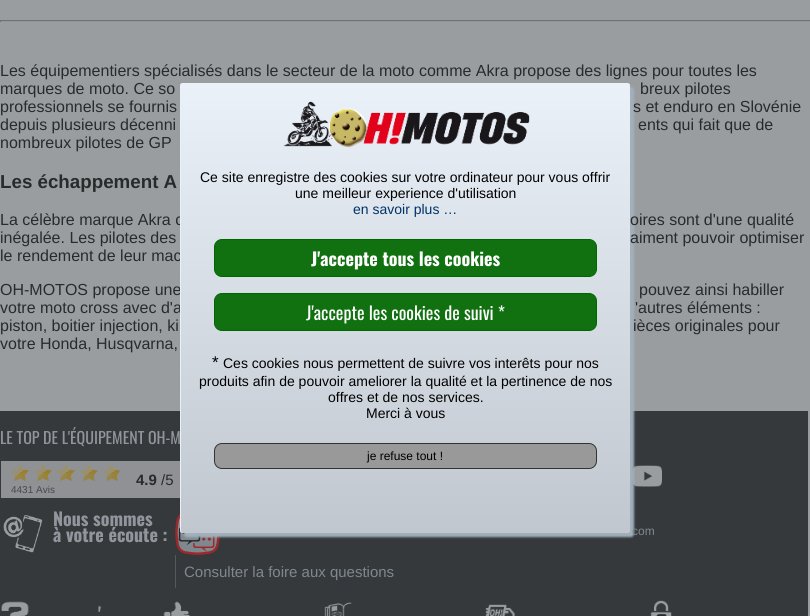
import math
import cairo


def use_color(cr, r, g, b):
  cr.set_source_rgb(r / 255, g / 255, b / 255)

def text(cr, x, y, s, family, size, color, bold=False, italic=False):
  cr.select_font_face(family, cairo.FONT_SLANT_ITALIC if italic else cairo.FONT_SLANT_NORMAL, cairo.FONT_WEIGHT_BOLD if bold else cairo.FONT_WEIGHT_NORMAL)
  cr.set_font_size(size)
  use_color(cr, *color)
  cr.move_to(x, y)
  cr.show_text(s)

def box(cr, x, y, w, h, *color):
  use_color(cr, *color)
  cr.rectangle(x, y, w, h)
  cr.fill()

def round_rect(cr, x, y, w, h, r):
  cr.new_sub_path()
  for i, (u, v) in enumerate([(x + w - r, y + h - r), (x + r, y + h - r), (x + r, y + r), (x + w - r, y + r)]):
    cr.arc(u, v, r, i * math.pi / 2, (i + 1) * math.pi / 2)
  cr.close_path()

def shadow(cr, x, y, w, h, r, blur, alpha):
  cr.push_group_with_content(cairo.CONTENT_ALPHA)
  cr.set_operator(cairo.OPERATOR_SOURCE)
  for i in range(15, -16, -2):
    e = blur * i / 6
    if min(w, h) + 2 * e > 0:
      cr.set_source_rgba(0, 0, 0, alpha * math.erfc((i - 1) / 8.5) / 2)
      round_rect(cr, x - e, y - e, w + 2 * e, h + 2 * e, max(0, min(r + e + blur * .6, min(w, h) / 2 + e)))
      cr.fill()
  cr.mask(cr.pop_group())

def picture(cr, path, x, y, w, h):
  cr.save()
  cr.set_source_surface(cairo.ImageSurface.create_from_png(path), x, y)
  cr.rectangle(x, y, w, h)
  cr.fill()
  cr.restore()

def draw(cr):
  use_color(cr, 154, 157, 159)
  cr.paint()
  box(cr, 0, 20, 810, 1, 111, 113, 116)
  box(cr, 0, 21, 810, 1, 147, 149, 151)
  box(cr, 0, 20, 1, 2, 111, 113, 116)
  box(cr, 0, 411, 808, 205, 53, 57, 60)
  picture(cr, "img_04.png", 632, 465, 30, 22)
  picture(cr, "img_06.png", 175, 514, 45, 41)
  use_color(cr, 162, 176, 188)
  shadow(cr, 184, 87, 450, 450, 3, 1, 1)
  box(cr, 1, 461, 179, 37, 143, 145, 148)
  picture(cr, "img_02.png", 12, 468, 109, 13)
  picture(cr, "img_03.png", 11, 464, 108, 17)
  picture(cr, "img_05.png", 3, 515, 40, 38)
  box(cr, 175, 555, 1, 33, 86, 88, 90)
  picture(cr, "img_07.png", 1, 601, 28, 15)
  picture(cr, "img_08.png", 163, 601, 27, 15)
  picture(cr, "img_09.png", 324, 602, 28, 14)
  picture(cr, "img_10.png", 485, 604, 30, 12)
  picture(cr, "img_11.png", 650, 600, 22, 16)
  text(cr, 0, 76, "Les équipementiers spécialisés dans le secteur de la moto comme Akra propose des lignes pour toutes les", "Liberation Sans", 16, (40, 42, 44))
  text(cr, 0, 94, "marques de moto. Ce so", "Liberation Sans", 16, (40, 42, 44))
  text(cr, 640, 94, "breux pilotes", "Liberation Sans", 16, (40, 42, 44))
  text(cr, 0, 112, "professionnels se fournis", "Liberation Sans", 16, (40, 42, 44))
  text(cr, 633, 112, "s et enduro en Slovénie", "Liberation Sans", 16, (40, 42, 44))
  text(cr, 0, 130, "depuis plusieurs décenni", "Liberation Sans", 16, (40, 42, 44))
  text(cr, 638, 130, "ents qui fait que de", "Liberation Sans", 16, (40, 42, 44))
  text(cr, 0, 148, "nombreux pilotes de GP", "Liberation Sans", 16, (40, 42, 44))
  text(cr, 0, 188, "Les échappement A", "Liberation Sans", 18.75, (40, 42, 44), bold=True)
  text(cr, 0, 225, "La célèbre marque Akra c", "Liberation Sans", 16, (40, 42, 44))
  text(cr, 630, 225, "oires sont d'une qualité", "Liberation Sans", 16, (40, 42, 44))
  text(cr, 0, 243, "inégalée. Les pilotes des", "Liberation Sans", 16, (40, 42, 44))
  text(cr, 630, 243, "aiment pouvoir optimiser", "Liberation Sans", 16, (40, 42, 44))
  text(cr, 0, 261, "le rendement de leur mac", "Liberation Sans", 16, (40, 42, 44))
  text(cr, 0, 295, "OH-MOTOS propose une", "Liberation Sans", 16, (40, 42, 44))
  text(cr, 639, 295, "pouvez ainsi habiller", "Liberation Sans", 16, (40, 42, 44))
  text(cr, 0, 313, "votre moto cross avec d'a", "Liberation Sans", 16, (40, 42, 44))
  text(cr, 635, 313, "'autres éléments :", "Liberation Sans", 16, (40, 42, 44))
  text(cr, 0, 331, "piston, boitier injection, ki", "Liberation Sans", 16, (40, 42, 44))
  text(cr, 633, 331, "ièces originales pour", "Liberation Sans", 16, (40, 42, 44))
  text(cr, 0, 349, "votre Honda, Husqvarna,", "Liberation Sans", 16, (40, 42, 44))
  use_color(cr, 195, 208, 220)
  round_rect(cr, 180, 83, 450, 450, 3)
  cr.fill()
  cr.save()
  round_rect(cr, 180, 83, 450, 450, 3)
  cr.clip()
  gradient = cairo.LinearGradient(406, 84, 406, 533)
  gradient.add_color_stop_rgba(0, 0.918, 0.945, 0.976, 1)
  gradient.add_color_stop_rgba(1, 0.757, 0.78, 0.808, 1)
  cr.set_source(gradient)
  cr.new_path()
  cr.move_to(181, 84)
  cr.line_to(630, 84)
  cr.line_to(630, 530)
  cr.curve_to(630, 531.5, 628.5, 533, 627, 533)
  cr.line_to(181, 533)
  cr.close_path()
  cr.fill()
  cr.restore()
  use_color(cr, 234, 241, 249)
  cr.set_fill_rule(cairo.FILL_RULE_EVEN_ODD)
  cr.new_path()
  cr.move_to(183, 83)
  cr.line_to(627, 83)
  cr.curve_to(629, 83, 630, 84, 630, 86)
  cr.line_to(630, 530)
  cr.curve_to(630, 532, 629, 533, 627, 533)
  cr.line_to(183, 533)
  cr.curve_to(181, 533, 180, 532, 180, 530)
  cr.line_to(180, 86)
  cr.curve_to(180, 84, 181, 83, 183, 83)
  cr.close_path()
  cr.move_to(183, 84)
  cr.line_to(627, 84)
  cr.curve_to(629, 84, 630, 85, 630, 86)
  cr.line_to(630, 530)
  cr.curve_to(630, 532, 629, 533, 627, 533)
  cr.line_to(183, 533)
  cr.curve_to(182, 533, 181, 532, 181, 530)
  cr.line_to(181, 86)
  cr.curve_to(181, 85, 182, 84, 183, 84)
  cr.close_path()
  cr.fill()
  picture(cr, "img_01.png", 283, 101, 247, 47)
  text(cr, 200, 182, "Ce site enregistre des cookies sur votre ordinateur pour vous offrir", "Liberation Sans", 14, (0, 0, 0))
  text(cr, 295, 198, "une meilleur experience d'utilisation", "Liberation Sans", 14, (0, 0, 0))
  text(cr, 353, 214, "en savoir plus …", "Liberation Sans", 14, (0, 51, 102))
  use_color(cr, 17, 113, 17)
  round_rect(cr, 214.5, 239.5, 382, 37, 7.5)
  cr.fill_preserve()
  use_color(cr, 0, 102, 0)
  cr.set_line_width(1)
  cr.stroke()
  text(cr, 311, 266, "J'accepte tous les cookies", "Oswald", 18, (255, 255, 255), bold=True)
  use_color(cr, 17, 113, 17)
  round_rect(cr, 214.5, 293.5, 382, 37, 7.5)
  cr.fill_preserve()
  use_color(cr, 0, 102, 0)
  cr.stroke()
  text(cr, 306, 320, "J'accepte les cookies de suivi *", "Oswald", 18, (255, 255, 255))
  text(cr, 212, 368, "*", "Liberation Sans", 17, (0, 0, 0))
  text(cr, 223, 368, "Ces cookies nous permettent de suivre vos interêts pour nos", "Liberation Sans", 14, (0, 0, 0))
  text(cr, 199, 386, "produits afin de pouvoir ameliorer la qualité et la pertinence de nos", "Liberation Sans", 14, (0, 0, 0))
  text(cr, 328, 402, "offres et de nos services.", "Liberation Sans", 14, (0, 0, 0))
  text(cr, 366, 418, "Merci à vous", "Liberation Sans", 14, (0, 0, 0))
  use_color(cr, 153, 153, 153)
  round_rect(cr, 214.5, 443.5, 382, 25, 7.5)
  cr.fill_preserve()
  use_color(cr, 51, 51, 51)
  cr.stroke()
  text(cr, 367, 460, "je refuse tout !", "Liberation Sans", 12, (0, 0, 0))
  text(cr, 0, 444, "LE TOP DE L'ÉQUIPEMENT OH-M", "Oswald", 16, (145, 150, 156))
  text(cr, 136, 485, "4.9", "Liberation Sans", 15, (40, 42, 44), bold=True)
  text(cr, 161, 485, "/5", "Liberation Sans", 15, (40, 42, 44))
  text(cr, 11, 493, "4431 Avis", "Liberation Sans", 10, (68, 73, 78))
  text(cr, 53, 526, "Nous sommes", "Oswald", 18, (145, 150, 156), bold=True)
  text(cr, 53, 542, "à votre écoute :", "Oswald", 18, (145, 150, 156), bold=True)
  text(cr, 632, 535, "com", "Liberation Sans", 12, (127, 135, 143))
  text(cr, 184, 577, "Consulter la foire aux questions", "Liberation Sans", 15, (127, 135, 143))
  text(cr, 98, 621, "'", "Oswald", 18, (145, 150, 156), bold=True)


surface = cairo.ImageSurface(cairo.FORMAT_RGB24, 810, 616)
cr = cairo.Context(surface)
options = cairo.FontOptions()
options.set_hint_metrics(cairo.HINT_METRICS_OFF)
options.set_hint_style(cairo.HINT_STYLE_NONE)
cr.set_font_options(options)
cr.set_miter_limit(4)
draw(cr)
surface.write_to_png("out.png")
